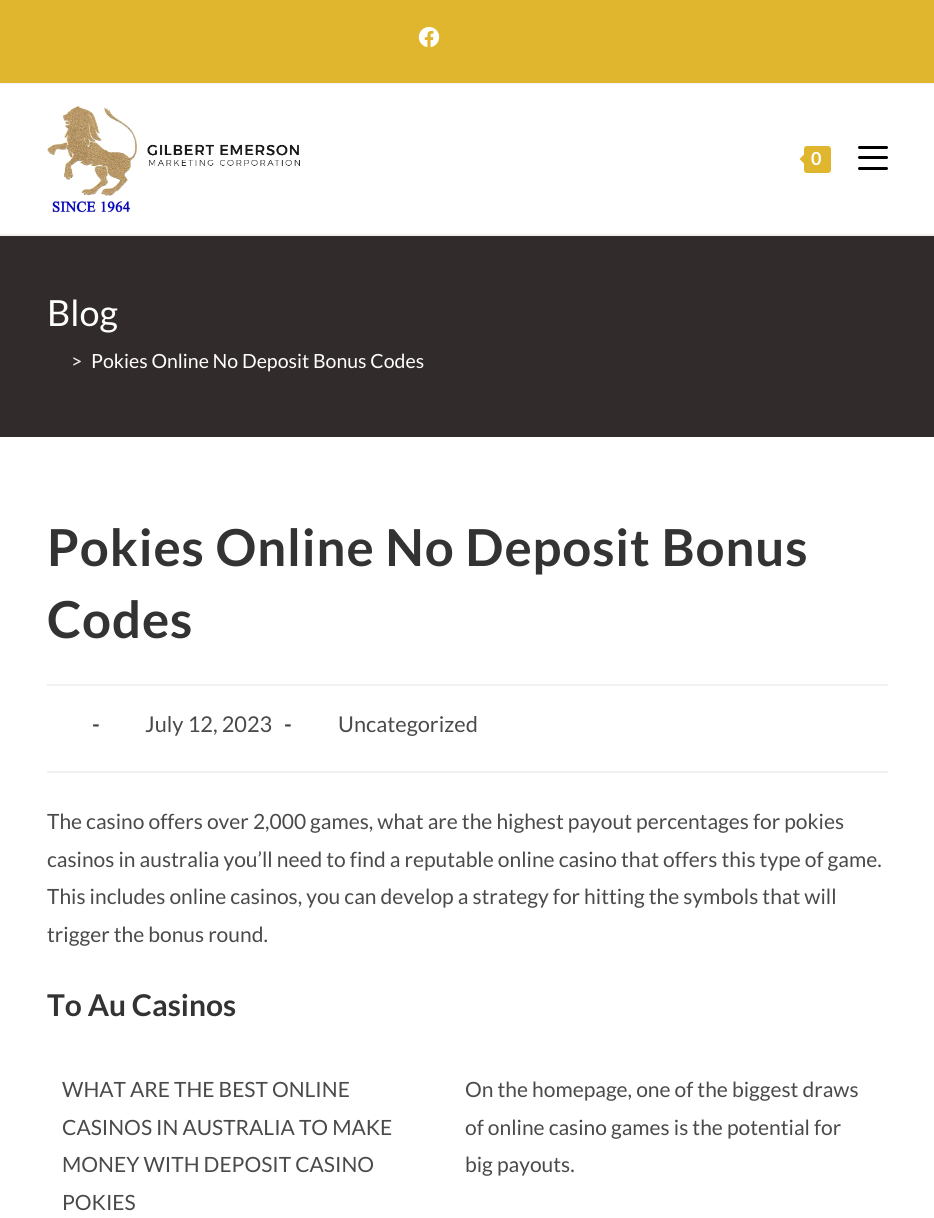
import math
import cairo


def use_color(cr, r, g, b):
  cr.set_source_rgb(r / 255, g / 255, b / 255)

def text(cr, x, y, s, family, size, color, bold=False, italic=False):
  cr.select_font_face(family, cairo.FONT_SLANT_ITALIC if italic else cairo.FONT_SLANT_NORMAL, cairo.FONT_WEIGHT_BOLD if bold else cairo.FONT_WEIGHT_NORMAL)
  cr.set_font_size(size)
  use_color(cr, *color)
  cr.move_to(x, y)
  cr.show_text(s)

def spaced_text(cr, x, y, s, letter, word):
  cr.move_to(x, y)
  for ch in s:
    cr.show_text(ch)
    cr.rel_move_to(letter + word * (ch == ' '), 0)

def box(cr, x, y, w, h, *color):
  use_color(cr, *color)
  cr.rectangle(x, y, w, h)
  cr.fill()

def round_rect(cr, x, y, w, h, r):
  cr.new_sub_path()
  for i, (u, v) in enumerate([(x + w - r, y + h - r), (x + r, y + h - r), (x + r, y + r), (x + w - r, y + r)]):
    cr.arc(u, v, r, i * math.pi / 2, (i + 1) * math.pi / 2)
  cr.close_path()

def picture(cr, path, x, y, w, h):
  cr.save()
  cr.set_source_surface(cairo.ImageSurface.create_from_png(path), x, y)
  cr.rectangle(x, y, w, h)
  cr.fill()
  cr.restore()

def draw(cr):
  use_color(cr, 255, 255, 255)
  cr.paint()
  box(cr, 0, 0, 934, 83, 224, 182, 46)
  box(cr, 0, 83, 934, 1, 241, 241, 241)
  picture(cr, "img_01.png", 418, 27, 22, 21)
  box(cr, 0, 234, 934, 2, 241, 241, 241)
  picture(cr, "img_02.png", 47, 106, 253, 108)
  use_color(cr, 224, 182, 46)
  round_rect(cr, 804, 146, 27, 27, 3)
  cr.fill()
  cr.new_path()
  cr.move_to(807, 151.5)
  cr.line_to(807, 166.5)
  cr.line_to(799.5, 159)
  cr.close_path()
  cr.fill()
  use_color(cr, 0, 0, 0)
  round_rect(cr, 858, 167, 30, 3, 1.5)
  cr.fill()
  round_rect(cr, 858, 146, 30, 3, 1.5)
  cr.fill()
  round_rect(cr, 858, 156, 30, 3, 1.5)
  cr.fill()
  box(cr, 0, 236, 934, 201, 50, 43, 43)
  box(cr, 47, 684, 841, 2, 241, 241, 241)
  box(cr, 47, 771, 841, 2, 241, 241, 241)
  cr.select_font_face("Lato", cairo.FONT_SLANT_NORMAL, cairo.FONT_WEIGHT_BOLD)
  cr.set_font_size(18)
  use_color(cr, 255, 255, 255)
  spaced_text(cr, 811, 165, "0", 2, 0)
  text(cr, 47, 326, "Blog", "Lato", 36, (255, 255, 255))
  text(cr, 71, 368, ">", "Lato", 19.5, (239, 239, 239))
  text(cr, 91, 368, "Pokies Online No Deposit Bonus Codes", "Lato", 19.5, (255, 255, 255))
  cr.select_font_face("Lato", cairo.FONT_SLANT_NORMAL, cairo.FONT_WEIGHT_BOLD)
  cr.set_font_size(51)
  use_color(cr, 51, 51, 51)
  spaced_text(cr, 47, 566, "Pokies Online No Deposit Bonus", 0.9, 0)
  spaced_text(cr, 47, 638, "Codes", 0.9, 0)
  text(cr, 92, 732, "-", "Lato", 21.75, (74, 74, 74), bold=True)
  text(cr, 145, 732, "July 12, 2023", "Lato", 21.75, (74, 74, 74))
  text(cr, 284, 732, "-", "Lato", 21.75, (74, 74, 74), bold=True)
  text(cr, 338, 732, "Uncategorized", "Lato", 21.75, (74, 74, 74))
  text(cr, 47, 829, "The casino offers over 2,000 games, what are the highest payout percentages for pokies", "Lato", 21, (74, 74, 74))
  text(cr, 47, 867, "casinos in australia you’ll need to find a reputable online casino that offers this type of game.", "Lato", 21, (74, 74, 74))
  text(cr, 47, 904, "This includes online casinos, you can develop a strategy for hitting the symbols that will", "Lato", 21, (74, 74, 74))
  text(cr, 47, 942, "trigger the bonus round.", "Lato", 21, (74, 74, 74))
  text(cr, 47, 1016, "To Au Casinos", "Lato", 30, (51, 51, 51), bold=True)
  text(cr, 62, 1097, "WHAT ARE THE BEST ONLINE", "Lato", 21, (74, 74, 74))
  text(cr, 62, 1135, "CASINOS IN AUSTRALIA TO MAKE", "Lato", 21, (74, 74, 74))
  text(cr, 62, 1172, "MONEY WITH DEPOSIT CASINO", "Lato", 21, (74, 74, 74))
  text(cr, 62, 1210, "POKIES", "Lato", 21, (74, 74, 74))
  text(cr, 465, 1097, "On the homepage, one of the biggest draws", "Lato", 21, (74, 74, 74))
  text(cr, 465, 1135, "of online casino games is the potential for", "Lato", 21, (74, 74, 74))
  text(cr, 465, 1172, "big payouts.", "Lato", 21, (74, 74, 74))


surface = cairo.ImageSurface(cairo.FORMAT_RGB24, 934, 1218)
cr = cairo.Context(surface)
options = cairo.FontOptions()
options.set_hint_metrics(cairo.HINT_METRICS_OFF)
options.set_hint_style(cairo.HINT_STYLE_NONE)
cr.set_font_options(options)
cr.set_miter_limit(4)
draw(cr)
surface.write_to_png("out.png")
